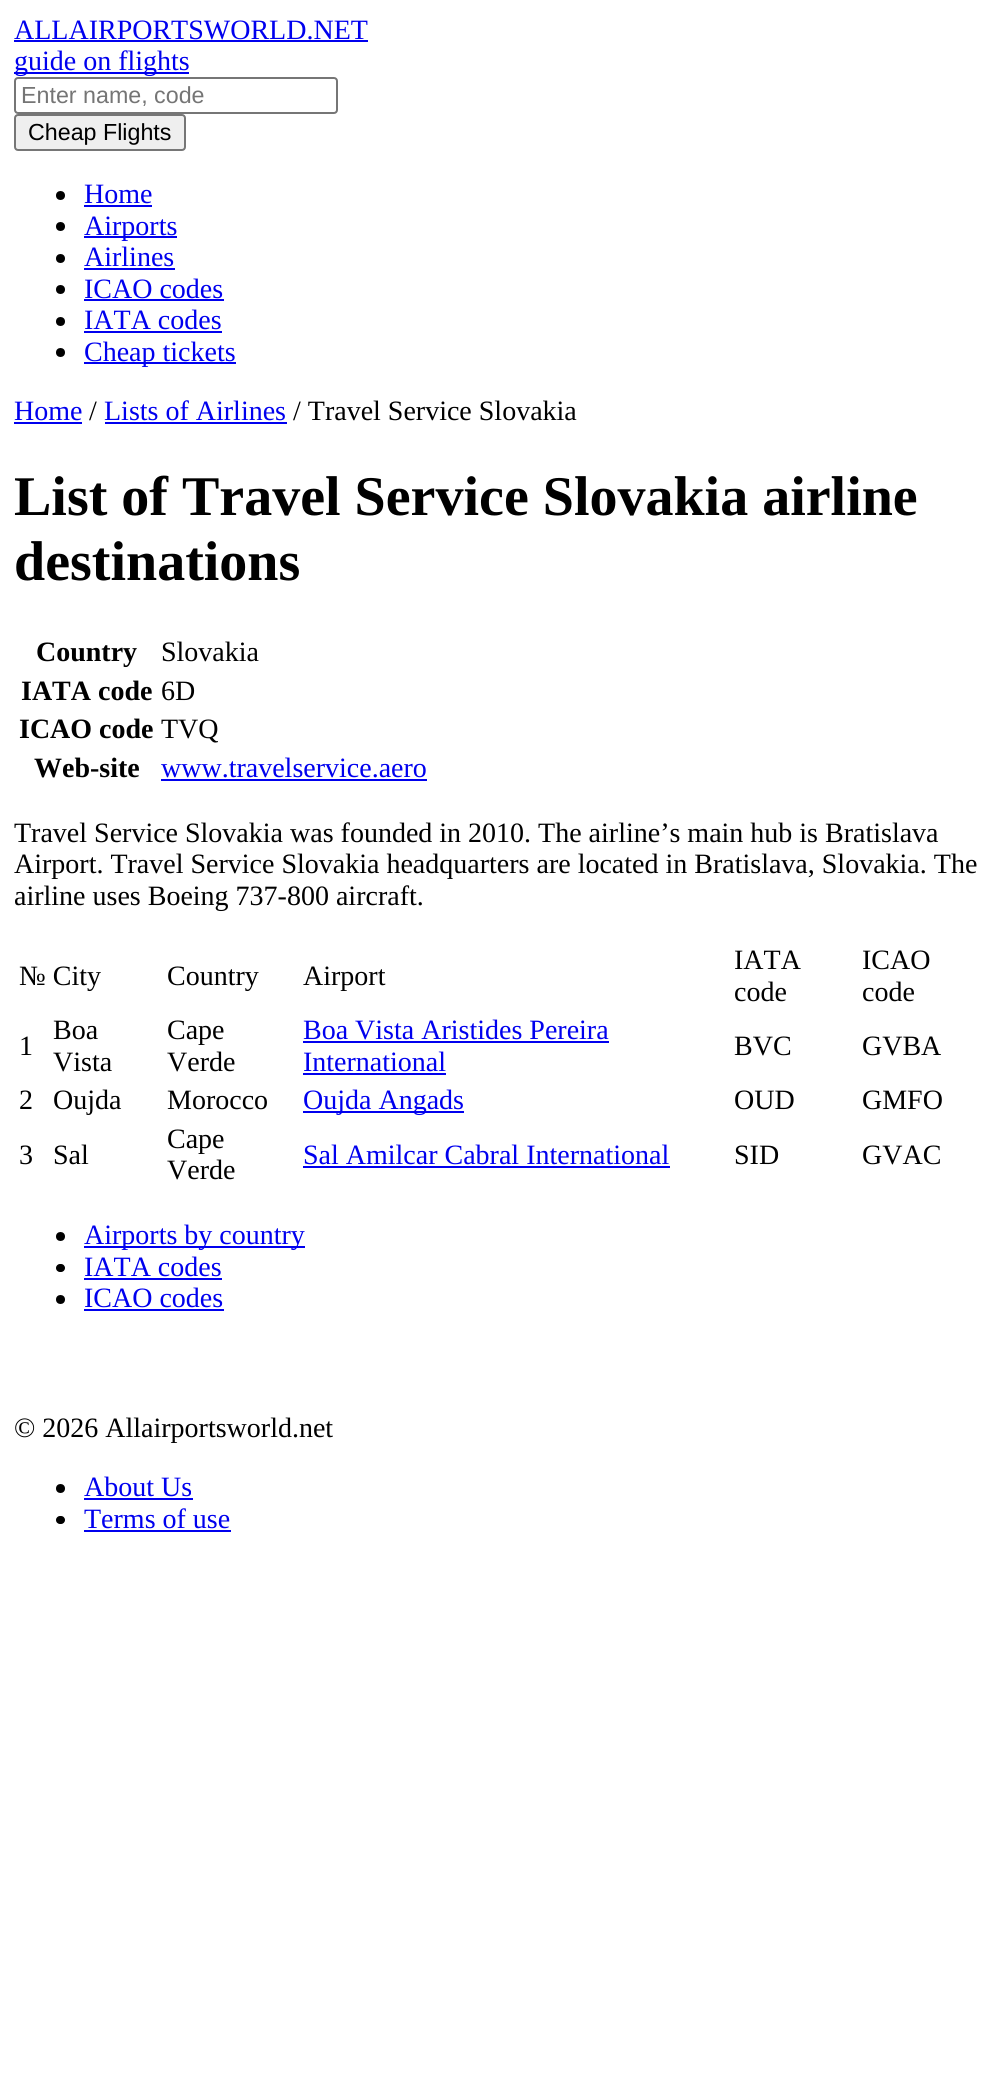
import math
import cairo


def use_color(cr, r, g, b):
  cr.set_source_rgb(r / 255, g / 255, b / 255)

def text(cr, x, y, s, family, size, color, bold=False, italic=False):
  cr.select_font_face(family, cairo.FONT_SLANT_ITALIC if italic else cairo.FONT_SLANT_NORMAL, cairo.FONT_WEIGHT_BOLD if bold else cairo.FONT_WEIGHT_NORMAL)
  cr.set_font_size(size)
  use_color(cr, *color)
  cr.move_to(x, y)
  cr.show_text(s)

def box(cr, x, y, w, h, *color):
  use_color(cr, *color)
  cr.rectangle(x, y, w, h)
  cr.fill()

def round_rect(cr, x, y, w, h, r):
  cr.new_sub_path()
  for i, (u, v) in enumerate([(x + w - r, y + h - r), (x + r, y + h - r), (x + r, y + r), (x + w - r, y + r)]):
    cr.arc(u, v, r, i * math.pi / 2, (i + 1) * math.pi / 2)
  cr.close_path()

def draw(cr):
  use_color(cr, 255, 255, 255)
  cr.paint()
  box(cr, 14, 40, 354, 2, 0, 0, 238)
  box(cr, 14, 72, 175, 2, 0, 0, 238)
  round_rect(cr, 15, 78, 322, 35, 3)
  use_color(cr, 118, 118, 118)
  cr.stroke()
  use_color(cr, 239, 239, 239)
  round_rect(cr, 15, 115, 170, 35, 3)
  cr.fill_preserve()
  use_color(cr, 118, 118, 118)
  cr.stroke()
  use_color(cr, 0, 0, 0)
  cr.arc(60.5, 195.5, 4.5, 0, 2 * math.pi)
  cr.fill()
  box(cr, 84, 205, 68, 2, 0, 0, 238)
  use_color(cr, 0, 0, 0)
  cr.arc(60.5, 226.5, 4.5, 0, 2 * math.pi)
  cr.fill()
  box(cr, 84, 236, 93, 2, 0, 0, 238)
  use_color(cr, 0, 0, 0)
  cr.arc(60.5, 258.5, 4.5, 0, 2 * math.pi)
  cr.fill()
  box(cr, 84, 268, 91, 2, 0, 0, 238)
  use_color(cr, 0, 0, 0)
  cr.arc(60.5, 289.5, 4.5, 0, 2 * math.pi)
  cr.fill()
  box(cr, 84, 299, 140, 2, 0, 0, 238)
  use_color(cr, 0, 0, 0)
  cr.arc(60.5, 321.5, 4.5, 0, 2 * math.pi)
  cr.fill()
  box(cr, 84, 331, 138, 2, 0, 0, 238)
  use_color(cr, 0, 0, 0)
  cr.arc(60.5, 352.5, 4.5, 0, 2 * math.pi)
  cr.fill()
  box(cr, 84, 362, 152, 2, 0, 0, 238)
  box(cr, 14, 422, 68, 2, 0, 0, 238)
  box(cr, 105, 422, 182, 2, 0, 0, 238)
  box(cr, 161, 779, 266, 2, 0, 0, 238)
  box(cr, 303, 1041, 306, 2, 0, 0, 238)
  box(cr, 303, 1073, 143, 2, 0, 0, 238)
  box(cr, 303, 1111, 161, 2, 0, 0, 238)
  box(cr, 303, 1166, 367, 2, 0, 0, 238)
  use_color(cr, 0, 0, 0)
  cr.arc(60.5, 1236.5, 4.5, 0, 2 * math.pi)
  cr.fill()
  box(cr, 84, 1246, 221, 2, 0, 0, 238)
  use_color(cr, 0, 0, 0)
  round_rect(cr, 56, 1264, 9, 8, 4)
  cr.fill()
  box(cr, 84, 1278, 138, 2, 0, 0, 238)
  use_color(cr, 0, 0, 0)
  cr.arc(60.5, 1299.5, 4.5, 0, 2 * math.pi)
  cr.fill()
  box(cr, 84, 1309, 140, 2, 0, 0, 238)
  use_color(cr, 0, 0, 0)
  cr.arc(60.5, 1488.5, 4.5, 0, 2 * math.pi)
  cr.fill()
  box(cr, 84, 1498, 109, 2, 0, 0, 238)
  use_color(cr, 0, 0, 0)
  round_rect(cr, 56, 1516, 9, 8, 4)
  cr.fill()
  box(cr, 84, 1530, 147, 2, 0, 0, 238)
  text(cr, 14, 39, "ALLAIRPORTSWORLD.NET", "Liberation Serif", 28, (0, 0, 238))
  text(cr, 14, 70, "guide on flights", "Liberation Serif", 28, (0, 0, 238))
  text(cr, 21, 103, "Enter name, code", "Liberation Sans", 23.25, (117, 117, 117))
  text(cr, 28, 140, "Cheap Flights", "Liberation Sans", 23.25, (0, 0, 0))
  text(cr, 84, 203, "Home", "Liberation Serif", 28, (0, 0, 238))
  text(cr, 84, 235, "Airports", "Liberation Serif", 28, (0, 0, 238))
  text(cr, 84, 266, "Airlines", "Liberation Serif", 28, (0, 0, 238))
  text(cr, 84, 298, "ICAO codes", "Liberation Serif", 28, (0, 0, 238))
  text(cr, 84, 329, "IATA codes", "Liberation Serif", 28, (0, 0, 238))
  text(cr, 84, 361, "Cheap tickets", "Liberation Serif", 28, (0, 0, 238))
  text(cr, 14, 420, "Home", "Liberation Serif", 28, (0, 0, 238))
  text(cr, 89, 420, "/", "Liberation Serif", 28, (0, 0, 0))
  text(cr, 104, 420, "Lists of Airlines", "Liberation Serif", 28, (0, 0, 238))
  text(cr, 293, 420, "/ Travel Service Slovakia", "Liberation Serif", 28, (0, 0, 0))
  text(cr, 14, 515, "List of Travel Service Slovakia airline", "Liberation Serif", 56, (0, 0, 0), bold=True)
  text(cr, 14, 580, "destinations", "Liberation Serif", 56, (0, 0, 0), bold=True)
  text(cr, 36, 661, "Country", "Liberation Serif", 28, (0, 0, 0), bold=True)
  text(cr, 161, 661, "Slovakia", "Liberation Serif", 28, (0, 0, 0))
  text(cr, 21, 700, "IATA code", "Liberation Serif", 28, (0, 0, 0), bold=True)
  text(cr, 161, 700, "6D", "Liberation Serif", 28, (0, 0, 0))
  text(cr, 19, 738, "ICAO code", "Liberation Serif", 28, (0, 0, 0), bold=True)
  text(cr, 161, 738, "TVQ", "Liberation Serif", 28, (0, 0, 0))
  text(cr, 34, 777, "Web-site", "Liberation Serif", 28, (0, 0, 0), bold=True)
  text(cr, 161, 777, "www.travelservice.aero", "Liberation Serif", 28, (0, 0, 238))
  text(cr, 14, 842, "Travel Service Slovakia was founded in 2010. The airline’s main hub is Bratislava", "Liberation Serif", 28, (0, 0, 0))
  text(cr, 14, 873, "Airport. Travel Service Slovakia headquarters are located in Bratislava, Slovakia. The", "Liberation Serif", 28, (0, 0, 0))
  text(cr, 14, 905, "airline uses Boeing 737-800 aircraft.", "Liberation Serif", 28, (0, 0, 0))
  text(cr, 19, 985, "№ City", "Liberation Serif", 28, (0, 0, 0))
  text(cr, 167, 985, "Country", "Liberation Serif", 28, (0, 0, 0))
  text(cr, 303, 985, "Airport", "Liberation Serif", 28, (0, 0, 0))
  text(cr, 734, 969, "IATA", "Liberation Serif", 28, (0, 0, 0))
  text(cr, 734, 1001, "code", "Liberation Serif", 28, (0, 0, 0))
  text(cr, 862, 969, "ICAO", "Liberation Serif", 28, (0, 0, 0))
  text(cr, 862, 1001, "code", "Liberation Serif", 28, (0, 0, 0))
  text(cr, 19, 1055, "1", "Liberation Serif", 28, (0, 0, 0))
  text(cr, 53, 1039, "Boa", "Liberation Serif", 28, (0, 0, 0))
  text(cr, 53, 1071, "Vista", "Liberation Serif", 28, (0, 0, 0))
  text(cr, 167, 1039, "Cape", "Liberation Serif", 28, (0, 0, 0))
  text(cr, 167, 1071, "Verde", "Liberation Serif", 28, (0, 0, 0))
  text(cr, 303, 1039, "Boa Vista Aristides Pereira", "Liberation Serif", 28, (0, 0, 238))
  text(cr, 303, 1071, "International", "Liberation Serif", 28, (0, 0, 238))
  text(cr, 734, 1055, "BVC", "Liberation Serif", 28, (0, 0, 0))
  text(cr, 862, 1055, "GVBA", "Liberation Serif", 28, (0, 0, 0))
  text(cr, 19, 1109, "2", "Liberation Serif", 28, (0, 0, 0))
  text(cr, 53, 1109, "Oujda", "Liberation Serif", 28, (0, 0, 0))
  text(cr, 167, 1109, "Morocco", "Liberation Serif", 28, (0, 0, 0))
  text(cr, 303, 1109, "Oujda Angads", "Liberation Serif", 28, (0, 0, 238))
  text(cr, 734, 1109, "OUD", "Liberation Serif", 28, (0, 0, 0))
  text(cr, 862, 1109, "GMFO", "Liberation Serif", 28, (0, 0, 0))
  text(cr, 19, 1164, "3", "Liberation Serif", 28, (0, 0, 0))
  text(cr, 53, 1164, "Sal", "Liberation Serif", 28, (0, 0, 0))
  text(cr, 167, 1148, "Cape", "Liberation Serif", 28, (0, 0, 0))
  text(cr, 167, 1179, "Verde", "Liberation Serif", 28, (0, 0, 0))
  text(cr, 303, 1164, "Sal Amilcar Cabral International", "Liberation Serif", 28, (0, 0, 238))
  text(cr, 734, 1164, "SID", "Liberation Serif", 28, (0, 0, 0))
  text(cr, 862, 1164, "GVAC", "Liberation Serif", 28, (0, 0, 0))
  text(cr, 84, 1244, "Airports by country", "Liberation Serif", 28, (0, 0, 238))
  text(cr, 84, 1276, "IATA codes", "Liberation Serif", 28, (0, 0, 238))
  text(cr, 84, 1307, "ICAO codes", "Liberation Serif", 28, (0, 0, 238))
  text(cr, 14, 1437, "© 2026 Allairportsworld.net", "Liberation Serif", 28, (0, 0, 0))
  text(cr, 84, 1496, "About Us", "Liberation Serif", 28, (0, 0, 238))
  text(cr, 84, 1528, "Terms of use", "Liberation Serif", 28, (0, 0, 238))


surface = cairo.ImageSurface(cairo.FORMAT_RGB24, 1003, 2077)
cr = cairo.Context(surface)
options = cairo.FontOptions()
options.set_hint_metrics(cairo.HINT_METRICS_OFF)
options.set_hint_style(cairo.HINT_STYLE_NONE)
cr.set_font_options(options)
cr.set_miter_limit(4)
draw(cr)
surface.write_to_png("out.png")
